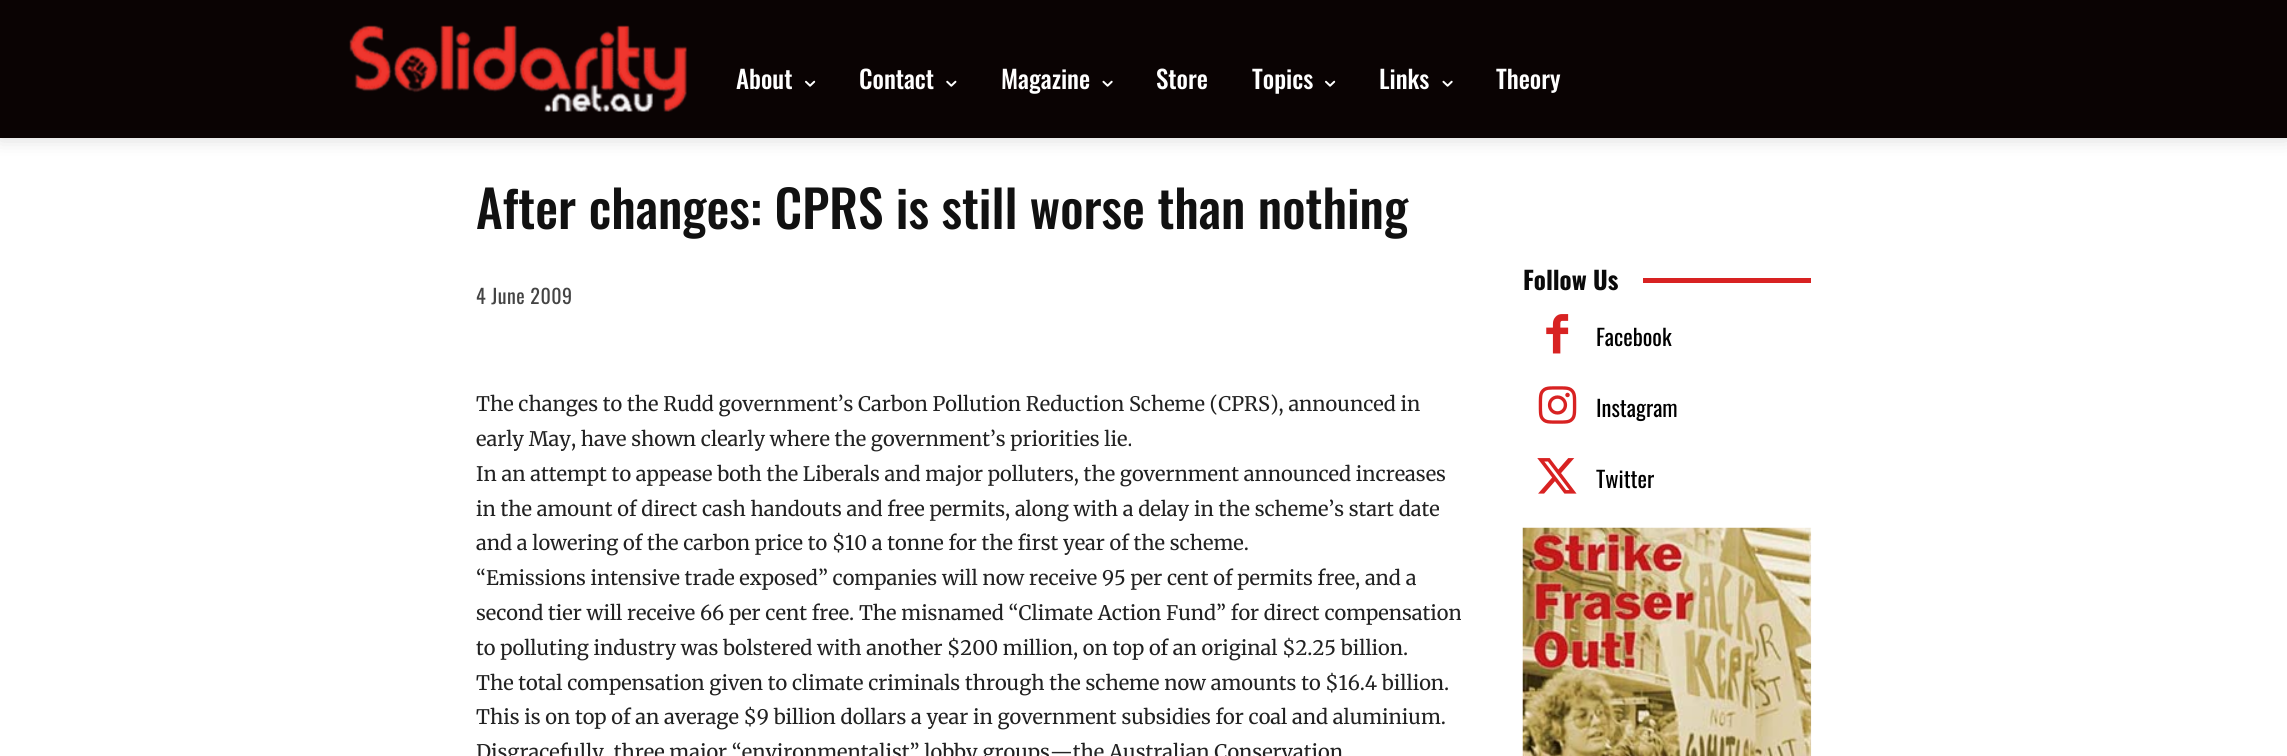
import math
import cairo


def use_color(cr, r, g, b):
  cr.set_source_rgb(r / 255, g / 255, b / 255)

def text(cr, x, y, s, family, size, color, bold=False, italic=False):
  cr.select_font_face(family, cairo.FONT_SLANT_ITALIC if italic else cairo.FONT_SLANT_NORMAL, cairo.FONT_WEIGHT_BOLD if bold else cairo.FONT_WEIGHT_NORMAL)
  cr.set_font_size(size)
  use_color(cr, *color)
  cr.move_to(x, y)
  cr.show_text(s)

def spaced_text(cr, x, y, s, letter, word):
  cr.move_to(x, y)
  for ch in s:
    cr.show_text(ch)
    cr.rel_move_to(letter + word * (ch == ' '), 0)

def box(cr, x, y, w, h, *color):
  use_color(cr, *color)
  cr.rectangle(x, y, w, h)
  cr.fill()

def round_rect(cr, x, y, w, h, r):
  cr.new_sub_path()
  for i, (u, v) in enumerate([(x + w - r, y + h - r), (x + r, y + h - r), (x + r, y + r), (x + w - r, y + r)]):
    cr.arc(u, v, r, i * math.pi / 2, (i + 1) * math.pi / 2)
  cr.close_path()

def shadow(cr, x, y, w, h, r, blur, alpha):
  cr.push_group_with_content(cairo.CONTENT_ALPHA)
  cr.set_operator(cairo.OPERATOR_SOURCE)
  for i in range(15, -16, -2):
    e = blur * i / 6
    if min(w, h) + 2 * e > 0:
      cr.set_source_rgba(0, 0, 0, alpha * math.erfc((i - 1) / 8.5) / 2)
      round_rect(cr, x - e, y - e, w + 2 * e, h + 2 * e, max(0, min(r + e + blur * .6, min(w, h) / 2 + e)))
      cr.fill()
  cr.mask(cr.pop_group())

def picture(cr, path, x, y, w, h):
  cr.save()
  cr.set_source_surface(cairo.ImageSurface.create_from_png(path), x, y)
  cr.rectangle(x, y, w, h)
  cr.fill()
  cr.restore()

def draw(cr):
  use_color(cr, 255, 255, 255)
  cr.paint()
  use_color(cr, 0, 0, 0)
  shadow(cr, 0, 0, 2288, 138, 0, 10, 0.16)
  box(cr, 0, 0, 2287, 138, 10, 3, 3)
  picture(cr, "img_01.png", 349, 25, 338, 87)
  picture(cr, "img_02.png", 805, 80, 11, 7)
  picture(cr, "img_03.png", 946, 80, 11, 7)
  picture(cr, "img_04.png", 1102, 80, 11, 7)
  picture(cr, "img_02.png", 1325, 80, 11, 7)
  picture(cr, "img_04.png", 1442, 80, 11, 7)
  box(cr, 1643, 278, 168, 5, 216, 34, 34)
  picture(cr, "img_05.png", 1546, 314, 23, 40)
  picture(cr, "img_06.png", 1538, 386, 39, 38)
  picture(cr, "img_07.png", 1537, 458, 40, 36)
  picture(cr, "img_08.png", 1522, 527, 290, 229)
  text(cr, 736, 89, "About", "Oswald Medium", 25, (255, 255, 255))
  text(cr, 859, 89, "Contact", "Oswald Medium", 25, (255, 255, 255))
  text(cr, 1001, 89, "Magazine", "Oswald Medium", 25, (255, 255, 255))
  text(cr, 1156, 89, "Store", "Oswald Medium", 25, (255, 255, 255))
  text(cr, 1252, 89, "Topics", "Oswald Medium", 25, (255, 255, 255))
  text(cr, 1379, 89, "Links", "Oswald Medium", 25, (255, 255, 255))
  text(cr, 1496, 89, "Theory", "Oswald Medium", 25, (255, 255, 255))
  text(cr, 476, 229, "After changes: CPRS is still worse than nothing", "Oswald Medium", 51.25, (17, 17, 17))
  cr.select_font_face("Oswald")
  cr.set_font_size(20)
  use_color(cr, 68, 68, 68)
  spaced_text(cr, 476, 304, "4 June 2009", 0.5, 0)
  text(cr, 476, 411, "The changes to the Rudd government’s Carbon Pollution Reduction Scheme (CPRS), announced in", "Merriweather", 20, (34, 34, 34))
  text(cr, 476, 446, "early May, have shown clearly where the government’s priorities lie.", "Merriweather", 20, (34, 34, 34))
  text(cr, 476, 481, "In an attempt to appease both the Liberals and major polluters, the government announced increases", "Merriweather", 20, (34, 34, 34))
  text(cr, 476, 516, "in the amount of direct cash handouts and free permits, along with a delay in the scheme’s start date", "Merriweather", 20, (34, 34, 34))
  text(cr, 476, 550, "and a lowering of the carbon price to $10 a tonne for the first year of the scheme.", "Merriweather", 20, (34, 34, 34))
  text(cr, 476, 585, "“Emissions intensive trade exposed” companies will now receive 95 per cent of permits free, and a", "Merriweather", 20, (34, 34, 34))
  text(cr, 476, 620, "second tier will receive 66 per cent free. The misnamed “Climate Action Fund” for direct compensation", "Merriweather", 20, (34, 34, 34))
  text(cr, 476, 655, "to polluting industry was bolstered with another $200 million, on top of an original $2.25 billion.", "Merriweather", 20, (34, 34, 34))
  text(cr, 476, 690, "The total compensation given to climate criminals through the scheme now amounts to $16.4 billion.", "Merriweather", 20, (34, 34, 34))
  text(cr, 476, 724, "This is on top of an average $9 billion dollars a year in government subsidies for coal and aluminium.", "Merriweather", 20, (34, 34, 34))
  text(cr, 476, 759, "Disgracefully, three major “environmentalist” lobby groups—the Australian Conservation", "Merriweather", 20, (34, 34, 34))
  text(cr, 1523, 290, "Follow Us", "Oswald", 25, (10, 10, 10), bold=True)
  text(cr, 1596, 346, "Facebook", "Oswald", 22.5, (0, 0, 0))
  text(cr, 1596, 417, "Instagram", "Oswald", 22.5, (0, 0, 0))
  text(cr, 1596, 488, "Twitter", "Oswald", 22.5, (0, 0, 0))


surface = cairo.ImageSurface(cairo.FORMAT_RGB24, 2287, 756)
cr = cairo.Context(surface)
options = cairo.FontOptions()
options.set_hint_metrics(cairo.HINT_METRICS_OFF)
options.set_hint_style(cairo.HINT_STYLE_NONE)
cr.set_font_options(options)
cr.set_miter_limit(4)
draw(cr)
surface.write_to_png("out.png")
